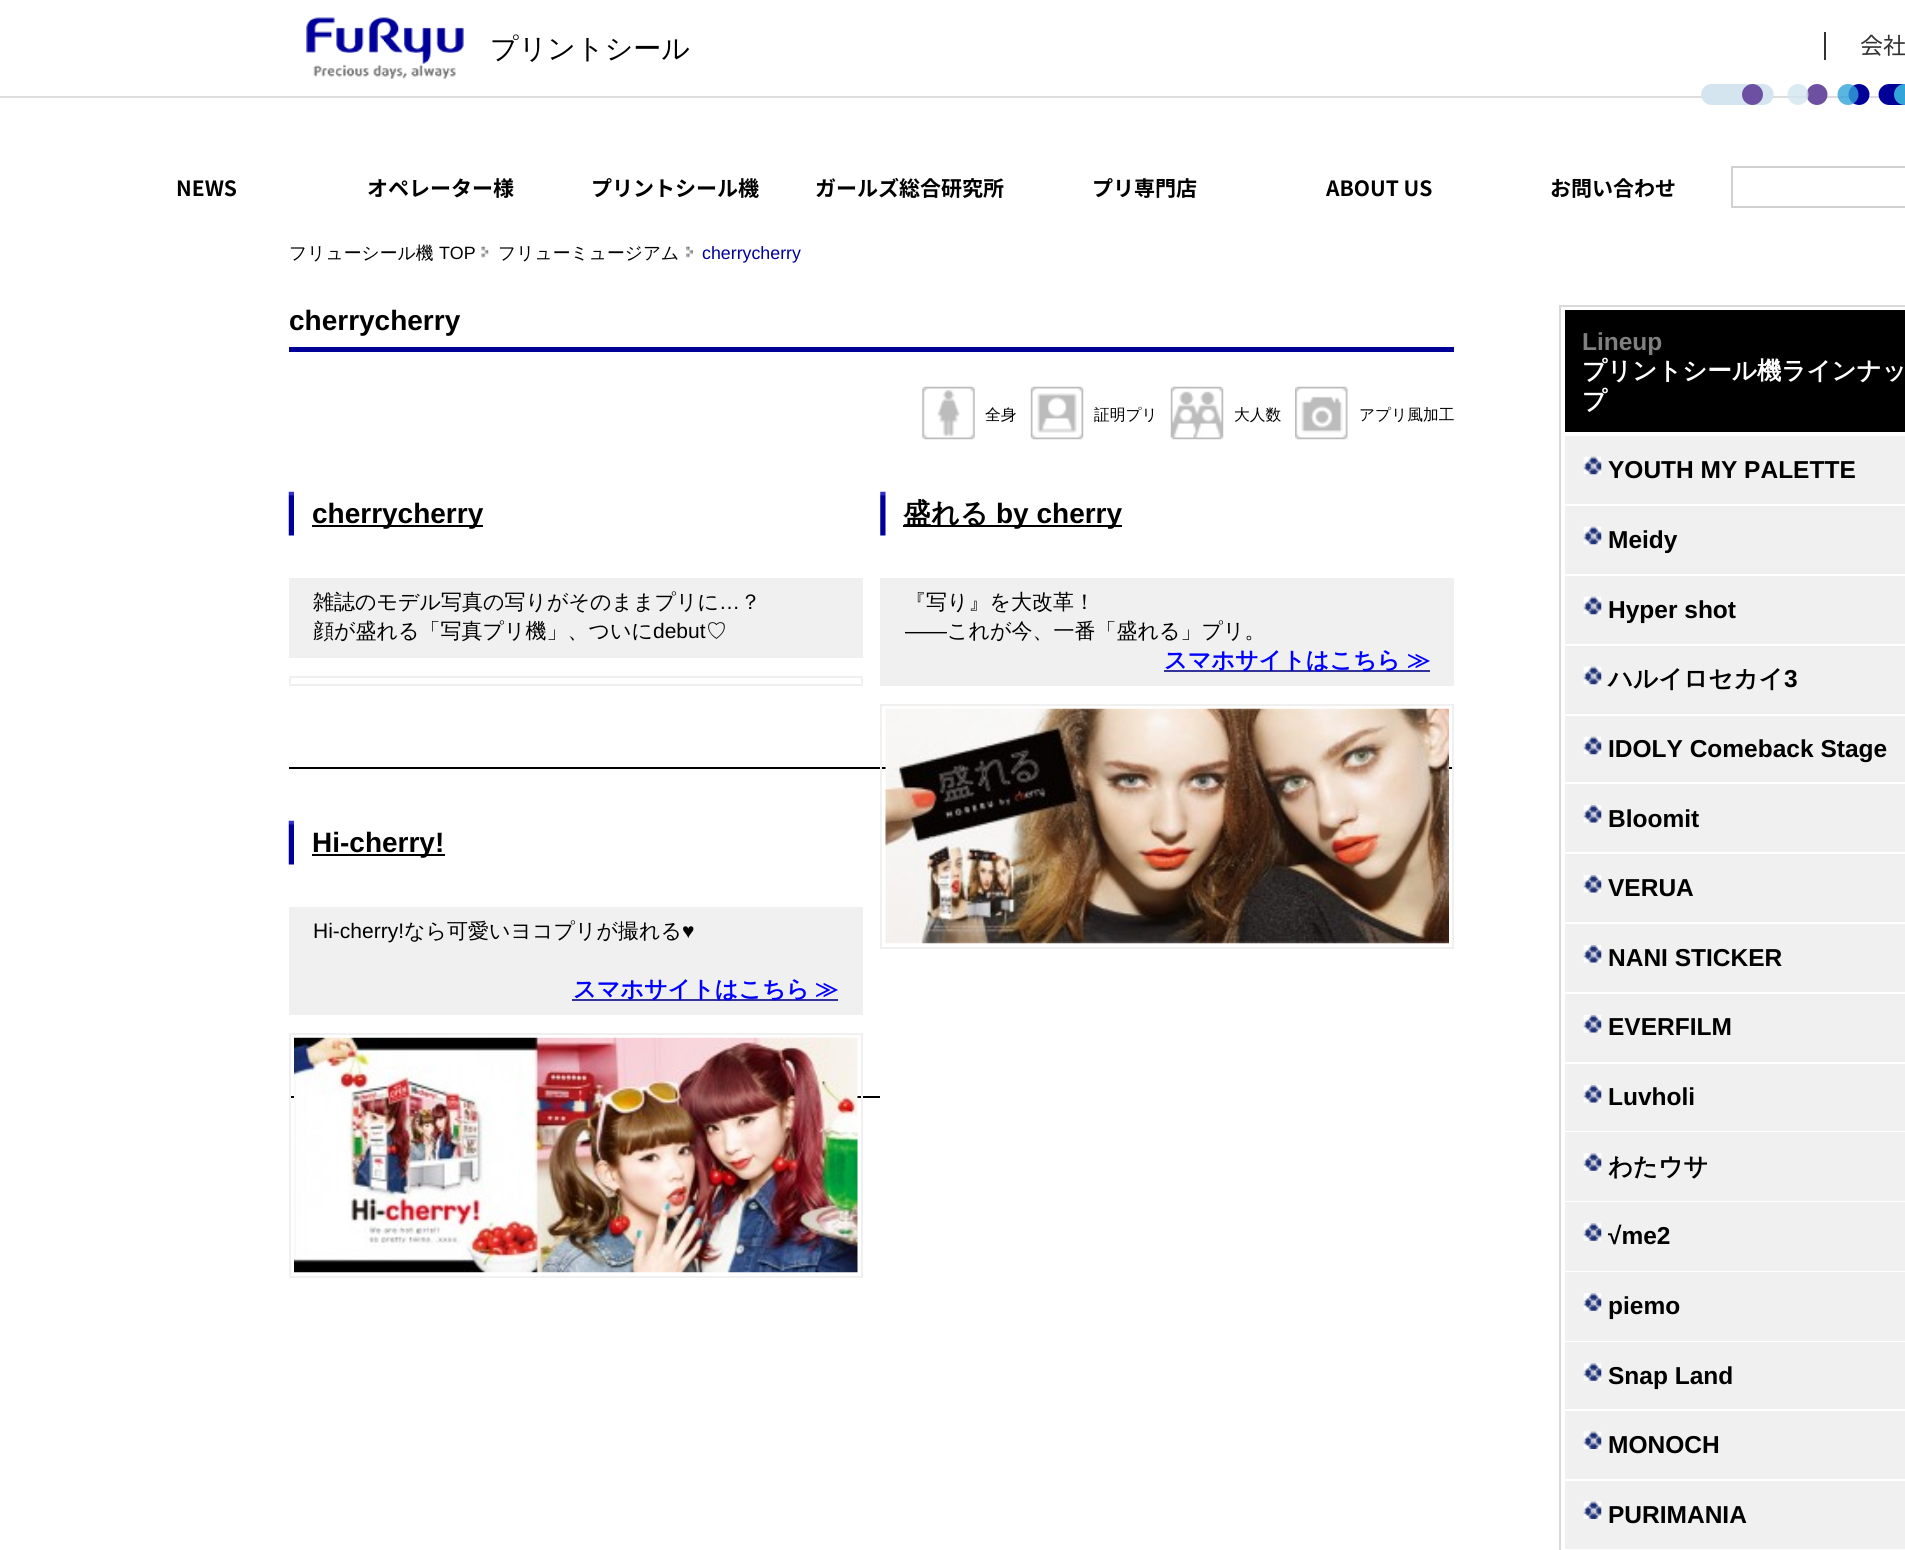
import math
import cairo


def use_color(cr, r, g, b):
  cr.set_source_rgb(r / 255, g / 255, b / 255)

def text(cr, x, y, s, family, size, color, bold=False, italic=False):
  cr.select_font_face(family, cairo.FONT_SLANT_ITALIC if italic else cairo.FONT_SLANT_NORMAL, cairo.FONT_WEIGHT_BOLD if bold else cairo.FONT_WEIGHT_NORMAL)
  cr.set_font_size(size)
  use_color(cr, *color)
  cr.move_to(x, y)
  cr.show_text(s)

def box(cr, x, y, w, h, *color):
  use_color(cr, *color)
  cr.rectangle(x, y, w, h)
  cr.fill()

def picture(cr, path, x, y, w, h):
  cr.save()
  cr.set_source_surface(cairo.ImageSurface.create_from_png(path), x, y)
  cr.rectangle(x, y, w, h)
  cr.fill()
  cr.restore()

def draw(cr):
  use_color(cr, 255, 255, 255)
  cr.paint()
  box(cr, 0, 96, 1880, 2, 221, 221, 221)
  picture(cr, "img_01.png", 306, 17, 158, 62)
  box(cr, 1824, 32, 2, 28, 51, 51, 51)
  picture(cr, "img_02.png", 1701, 84, 204, 21)
  cr.rectangle(1732, 167, 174, 40)
  use_color(cr, 209, 209, 209)
  cr.stroke()
  picture(cr, "img_03.png", 481, 246, 8, 12)
  picture(cr, "img_04.png", 686, 246, 7, 12)
  box(cr, 289, 347, 1165, 5, 0, 0, 153)
  picture(cr, "img_05.png", 922, 386, 53, 54)
  picture(cr, "img_06.png", 1030, 386, 54, 54)
  picture(cr, "img_07.png", 1170, 386, 54, 54)
  picture(cr, "img_08.png", 1295, 386, 53, 54)
  box(cr, 289, 767, 1165, 2, 0, 0, 0)
  picture(cr, "img_09.png", 288, 491, 6, 45)
  box(cr, 312, 525, 171, 2, 0, 0, 0)
  box(cr, 289, 578, 574, 80, 240, 240, 240)
  cr.rectangle(290, 677, 572, 8)
  cr.stroke()
  picture(cr, "img_10.png", 880, 491, 6, 45)
  box(cr, 903, 525, 219, 2, 0, 0, 0)
  box(cr, 880, 578, 574, 108, 240, 240, 240)
  box(cr, 1164, 670, 266, 2, 51, 51, 153)
  cr.rectangle(881, 705, 572, 243)
  use_color(cr, 240, 240, 240)
  cr.stroke()
  picture(cr, "img_11.png", 885, 708, 564, 236)
  box(cr, 289, 1096, 591, 2, 0, 0, 0)
  picture(cr, "img_09.png", 288, 820, 6, 45)
  box(cr, 312, 854, 133, 2, 0, 0, 0)
  box(cr, 289, 907, 574, 108, 240, 240, 240)
  box(cr, 572, 999, 266, 2, 51, 51, 153)
  cr.rectangle(290, 1034, 572, 243)
  use_color(cr, 240, 240, 240)
  cr.stroke()
  picture(cr, "img_12.png", 294, 1037, 564, 236)
  cr.rectangle(1560, 306, 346, 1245)
  use_color(cr, 217, 217, 217)
  cr.stroke()
  box(cr, 1565, 310, 340, 122, 0, 0, 0)
  box(cr, 1565, 436, 340, 68, 240, 240, 240)
  picture(cr, "img_13.png", 1583, 456, 19, 19)
  box(cr, 1565, 506, 340, 68, 240, 240, 240)
  picture(cr, "img_13.png", 1583, 526, 19, 19)
  box(cr, 1565, 576, 340, 68, 240, 240, 240)
  picture(cr, "img_13.png", 1583, 596, 19, 19)
  box(cr, 1565, 646, 340, 68, 240, 240, 240)
  picture(cr, "img_13.png", 1583, 666, 19, 19)
  box(cr, 1565, 716, 340, 66, 240, 240, 240)
  picture(cr, "img_13.png", 1583, 736, 19, 19)
  box(cr, 1565, 784, 340, 68, 240, 240, 240)
  picture(cr, "img_14.png", 1583, 805, 19, 18)
  box(cr, 1565, 854, 340, 68, 240, 240, 240)
  picture(cr, "img_14.png", 1583, 875, 19, 18)
  box(cr, 1565, 924, 340, 68, 240, 240, 240)
  picture(cr, "img_14.png", 1583, 945, 19, 18)
  box(cr, 1565, 994, 340, 68, 240, 240, 240)
  picture(cr, "img_14.png", 1583, 1015, 19, 18)
  box(cr, 1565, 1064, 340, 67, 240, 240, 240)
  picture(cr, "img_14.png", 1583, 1085, 19, 18)
  box(cr, 1565, 1132, 340, 69, 240, 240, 240)
  picture(cr, "img_15.png", 1583, 1153, 19, 18)
  box(cr, 1565, 1202, 340, 69, 240, 240, 240)
  picture(cr, "img_15.png", 1583, 1223, 19, 18)
  box(cr, 1565, 1272, 340, 69, 240, 240, 240)
  picture(cr, "img_15.png", 1583, 1293, 19, 18)
  box(cr, 1565, 1342, 340, 67, 240, 240, 240)
  picture(cr, "img_15.png", 1583, 1363, 19, 18)
  box(cr, 1565, 1411, 340, 68, 240, 240, 240)
  picture(cr, "img_16.png", 1583, 1431, 19, 18)
  box(cr, 1565, 1481, 340, 68, 240, 240, 240)
  picture(cr, "img_16.png", 1583, 1501, 19, 18)
  text(cr, 490, 58, "プリントシール", "WenQuanYi Zen Hei Medium", 28, (0, 0, 0))
  text(cr, 1860, 54, "会社", "Noto Sans JP", 23, (51, 51, 51))
  text(cr, 176, 196, "NEWS", "Noto Sans JP", 21, (0, 0, 0), bold=True)
  text(cr, 367, 196, "オペレーター様", "Noto Sans JP", 21, (0, 0, 0), bold=True)
  text(cr, 591, 196, "プリントシール機", "Noto Sans JP", 21, (0, 0, 0), bold=True)
  text(cr, 815, 196, "ガールズ総合研究所", "Noto Sans JP", 21, (0, 0, 0), bold=True)
  text(cr, 1092, 196, "プリ専門店", "Noto Sans JP", 21, (0, 0, 0), bold=True)
  text(cr, 1326, 196, "ABOUT US", "Noto Sans JP", 21, (0, 0, 0), bold=True)
  text(cr, 1550, 196, "お問い合わせ", "Noto Sans JP", 21, (0, 0, 0), bold=True)
  text(cr, 289, 259, "フリューシール機", "WenQuanYi Zen Hei Medium", 17.8, (0, 0, 0))
  text(cr, 439, 259, "TOP", "Liberation Sans", 17.8, (0, 0, 0))
  text(cr, 498, 259, "フリューミュージアム", "WenQuanYi Zen Hei Medium", 17.8, (0, 0, 0))
  text(cr, 702, 259, "cherrycherry", "Liberation Sans", 17.8, (0, 0, 153))
  text(cr, 289, 330, "cherrycherry", "Liberation Sans", 28, (0, 0, 0), bold=True)
  text(cr, 985, 420, "全身", "WenQuanYi Zen Hei Medium", 15.75, (0, 0, 0))
  text(cr, 1094, 420, "証明プリ", "WenQuanYi Zen Hei Medium", 15.75, (0, 0, 0))
  text(cr, 1234, 420, "大人数", "WenQuanYi Zen Hei Medium", 15.75, (0, 0, 0))
  text(cr, 1359, 420, "アプリ風加工", "WenQuanYi Zen Hei Medium", 15.75, (0, 0, 0))
  text(cr, 312, 523, "cherrycherry", "Liberation Sans", 28, (0, 0, 0), bold=True)
  text(cr, 313, 609, "雑誌のモデル写真の写りがそのままプリに", "WenQuanYi Zen Hei Medium", 21, (0, 0, 0))
  text(cr, 719, 609, "…", "Liberation Sans", 21, (0, 0, 0))
  text(cr, 740, 609, "？", "WenQuanYi Zen Hei Medium", 21, (0, 0, 0))
  text(cr, 313, 638, "顔が盛れる「写真プリ機」、ついに", "WenQuanYi Zen Hei Medium", 21, (0, 0, 0))
  text(cr, 653, 638, "debut", "Liberation Sans", 21, (0, 0, 0))
  text(cr, 706, 638, "♡", "WenQuanYi Zen Hei Medium", 21, (0, 0, 0))
  text(cr, 903, 523, "盛れる", "WenQuanYi Zen Hei", 28, (0, 0, 0), bold=True)
  text(cr, 996, 523, "by cherry", "Liberation Sans", 28, (0, 0, 0), bold=True)
  text(cr, 905, 609, "『写り』を大改革！", "WenQuanYi Zen Hei Medium", 21, (0, 0, 0))
  text(cr, 905, 638, "――", "Liberation Sans", 21, (0, 0, 0))
  text(cr, 947, 638, "これが今、一番「盛れる」プリ。", "WenQuanYi Zen Hei Medium", 21, (0, 0, 0))
  text(cr, 1164, 668, "スマホサイトはこちら", "WenQuanYi Zen Hei", 23.1, (0, 0, 255), bold=True)
  text(cr, 1407, 668, "≫", "WenQuanYi Zen Hei", 23.1, (0, 0, 255), bold=True)
  text(cr, 312, 852, "Hi-cherry!", "Liberation Sans", 28, (0, 0, 0), bold=True)
  text(cr, 313, 938, "Hi-cherry!", "Liberation Sans", 21, (0, 0, 0))
  text(cr, 404, 938, "なら可愛いヨコプリが撮れる", "WenQuanYi Zen Hei Medium", 21, (0, 0, 0))
  text(cr, 682, 938, "♥", "Liberation Sans", 21, (0, 0, 0))
  text(cr, 573, 997, "スマホサイトはこちら", "WenQuanYi Zen Hei", 23.1, (0, 0, 255), bold=True)
  text(cr, 815, 997, "≫", "WenQuanYi Zen Hei", 23.1, (0, 0, 255), bold=True)
  text(cr, 1582, 350, "Lineup", "Liberation Sans", 24.5, (128, 128, 128), bold=True)
  text(cr, 1582, 379, "プリントシール機ラインナッ", "WenQuanYi Zen Hei", 24.5, (255, 255, 255), bold=True)
  text(cr, 1582, 409, "プ", "WenQuanYi Zen Hei", 24.5, (255, 255, 255), bold=True)
  text(cr, 1608, 478, "YOUTH MY PALETTE", "Liberation Sans", 24.5, (0, 0, 0), bold=True)
  text(cr, 1608, 548, "Meidy", "Liberation Sans", 24.5, (0, 0, 0), bold=True)
  text(cr, 1608, 618, "Hyper shot", "Liberation Sans", 24.5, (0, 0, 0), bold=True)
  text(cr, 1608, 687, "ハルイロセカイ", "WenQuanYi Zen Hei", 24.5, (0, 0, 0), bold=True)
  text(cr, 1784, 687, "3", "Liberation Sans", 24.5, (0, 0, 0), bold=True)
  text(cr, 1608, 757, "IDOLY Comeback Stage", "Liberation Sans", 24.5, (0, 0, 0), bold=True)
  text(cr, 1608, 827, "Bloomit", "Liberation Sans", 24.5, (0, 0, 0), bold=True)
  text(cr, 1608, 896, "VERUA", "Liberation Sans", 24.5, (0, 0, 0), bold=True)
  text(cr, 1608, 966, "NANI STICKER", "Liberation Sans", 24.5, (0, 0, 0), bold=True)
  text(cr, 1608, 1035, "EVERFILM", "Liberation Sans", 24.5, (0, 0, 0), bold=True)
  text(cr, 1608, 1105, "Luvholi", "Liberation Sans", 24.5, (0, 0, 0), bold=True)
  text(cr, 1608, 1175, "わたウサ", "WenQuanYi Zen Hei", 24.5, (0, 0, 0), bold=True)
  text(cr, 1608, 1244, "√me2", "Liberation Sans", 24.5, (0, 0, 0), bold=True)
  text(cr, 1608, 1314, "piemo", "Liberation Sans", 24.5, (0, 0, 0), bold=True)
  text(cr, 1608, 1384, "Snap Land", "Liberation Sans", 24.5, (0, 0, 0), bold=True)
  text(cr, 1608, 1453, "MONOCH", "Liberation Sans", 24.5, (0, 0, 0), bold=True)
  text(cr, 1608, 1523, "PURIMANIA", "Liberation Sans", 24.5, (0, 0, 0), bold=True)


surface = cairo.ImageSurface(cairo.FORMAT_RGB24, 1905, 1550)
cr = cairo.Context(surface)
options = cairo.FontOptions()
options.set_hint_metrics(cairo.HINT_METRICS_OFF)
options.set_hint_style(cairo.HINT_STYLE_NONE)
cr.set_font_options(options)
cr.set_miter_limit(4)
draw(cr)
surface.write_to_png("out.png")
